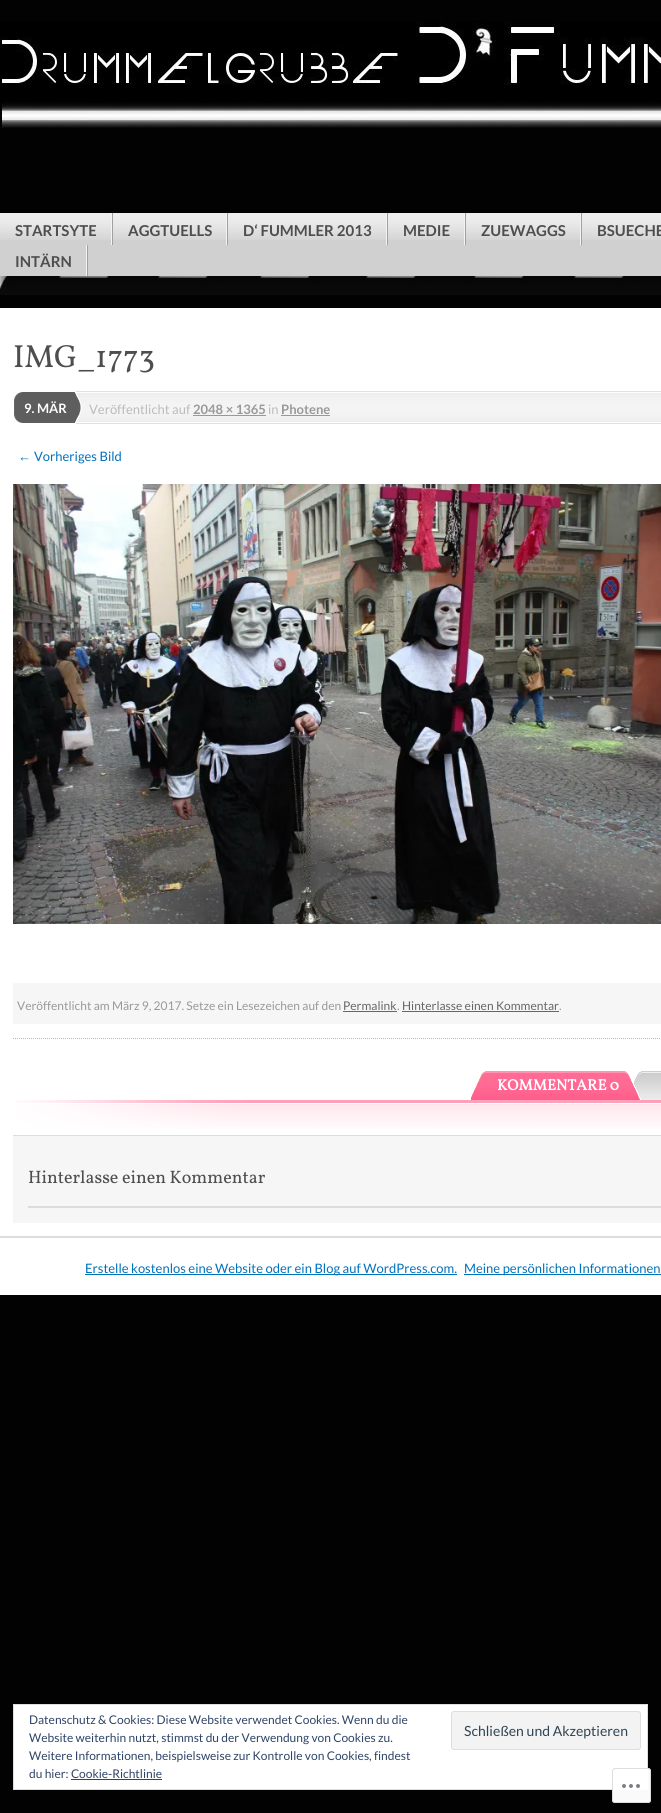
import math
import cairo


def use_color(cr, r, g, b):
  cr.set_source_rgb(r / 255, g / 255, b / 255)

def text(cr, x, y, s, family, size, color, bold=False, italic=False):
  cr.select_font_face(family, cairo.FONT_SLANT_ITALIC if italic else cairo.FONT_SLANT_NORMAL, cairo.FONT_WEIGHT_BOLD if bold else cairo.FONT_WEIGHT_NORMAL)
  cr.set_font_size(size)
  use_color(cr, *color)
  cr.move_to(x, y)
  cr.show_text(s)

def box(cr, x, y, w, h, *color):
  use_color(cr, *color)
  cr.rectangle(x, y, w, h)
  cr.fill()

def round_rect(cr, x, y, w, h, r):
  cr.new_sub_path()
  for i, (u, v) in enumerate([(x + w - r, y + h - r), (x + r, y + h - r), (x + r, y + r), (x + w - r, y + r)]):
    cr.arc(u, v, r, i * math.pi / 2, (i + 1) * math.pi / 2)
  cr.close_path()

def shadow(cr, x, y, w, h, r, blur, alpha):
  cr.push_group_with_content(cairo.CONTENT_ALPHA)
  cr.set_operator(cairo.OPERATOR_SOURCE)
  for i in range(15, -16, -2):
    e = blur * i / 6
    if min(w, h) + 2 * e > 0:
      cr.set_source_rgba(0, 0, 0, alpha * math.erfc((i - 1) / 8.5) / 2)
      round_rect(cr, x - e, y - e, w + 2 * e, h + 2 * e, max(0, min(r + e + blur * .6, min(w, h) / 2 + e)))
      cr.fill()
  cr.mask(cr.pop_group())

def picture(cr, path, x, y, w, h):
  cr.save()
  cr.set_source_surface(cairo.ImageSurface.create_from_png(path), x, y)
  cr.rectangle(x, y, w, h)
  cr.fill()
  cr.restore()

def draw(cr):
  use_color(cr, 2, 2, 2)
  cr.paint()
  picture(cr, "img_01.png", 0, 276, 661, 19)
  picture(cr, "img_02.png", 0, 21, 661, 107)
  use_color(cr, 0, 0, 0)
  shadow(cr, 0, 221, 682, 63, 0, 7, 0.6)
  box(cr, 0, 240, 661, 36, 208, 208, 208)
  picture(cr, "img_03.png", 0, 213, 661, 27)
  picture(cr, "img_04.png", 111, 213, 2, 32)
  picture(cr, "img_04.png", 226, 213, 2, 32)
  picture(cr, "img_04.png", 386, 213, 2, 32)
  picture(cr, "img_04.png", 464, 213, 2, 32)
  picture(cr, "img_04.png", 580, 213, 2, 32)
  picture(cr, "img_05.png", 86, 245, 2, 31)
  box(cr, 0, 308, 661, 928, 255, 255, 255)
  picture(cr, "img_06.png", 13, 1038, 647, 1)
  picture(cr, "img_07.png", 14, 392, 11, 31)
  picture(cr, "img_08.png", 25, 391, 58, 33)
  picture(cr, "img_09.png", 83, 391, 578, 33)
  box(cr, 193, 415, 73, 1, 153, 153, 153)
  box(cr, 281, 415, 49, 1, 153, 153, 153)
  picture(cr, "img_10.png", 13, 484, 648, 440)
  box(cr, 13, 983, 648, 41, 246, 246, 246)
  box(cr, 343, 1011, 54, 1, 102, 102, 102)
  box(cr, 402, 1011, 157, 1, 102, 102, 102)
  picture(cr, "img_11.png", 15, 1100, 646, 29)
  picture(cr, "img_14.png", 633, 1071, 28, 29)
  picture(cr, "img_12.png", 623, 1071, 18, 29)
  picture(cr, "img_13.png", 471, 1071, 152, 29)
  box(cr, 13, 1136, 648, 87, 246, 246, 246)
  box(cr, 13, 1135, 648, 1, 221, 221, 221)
  box(cr, 28, 1206, 633, 2, 220, 220, 222)
  box(cr, 0, 1238, 661, 57, 255, 255, 255)
  box(cr, 0, 1236, 661, 2, 221, 221, 221)
  box(cr, 85, 1274, 372, 1, 0, 113, 187)
  box(cr, 464, 1274, 197, 1, 0, 113, 187)
  use_color(cr, 255, 255, 255)
  cr.rectangle(13.5, 1704.5, 634, 85)
  cr.fill_preserve()
  use_color(cr, 222, 222, 222)
  cr.set_line_width(1)
  cr.stroke()
  use_color(cr, 243, 243, 243)
  round_rect(cr, 451.5, 1711.5, 189, 38, 2.5)
  cr.fill_preserve()
  use_color(cr, 222, 222, 222)
  cr.stroke()
  box(cr, 71, 1779, 91, 1, 46, 68, 103)
  cr.set_source_rgba(1, 1, 1, 0.98)
  round_rect(cr, 612, 1768, 39, 35, 3)
  cr.fill()
  round_rect(cr, 612.5, 1768.5, 38, 34, 2.5)
  cr.set_source_rgba(0.863, 0.863, 0.871, 0.98)
  cr.stroke()
  picture(cr, "img_15.png", 622, 1784, 18, 4)
  text(cr, 15, 236, "STARTSYTE", "Lato", 15, (78, 78, 78), bold=True)
  text(cr, 128, 236, "AGGTUELLS", "Lato", 15, (78, 78, 78), bold=True)
  text(cr, 243, 236, "D‘ FUMMLER 2013", "Lato", 15, (78, 78, 78), bold=True)
  text(cr, 403, 236, "MEDIE", "Lato", 15, (78, 78, 78), bold=True)
  text(cr, 481, 236, "ZUEWAGGS", "Lato", 15, (78, 78, 78), bold=True)
  text(cr, 597, 236, "BSUECHE", "Lato", 15, (78, 78, 78), bold=True)
  text(cr, 15, 267, "INTÄRN", "Lato", 15, (78, 78, 78), bold=True)
  text(cr, 13, 367, "IMG_1773", "Vollkorn", 32, (78, 78, 78))
  text(cr, 24, 413, "9. MÄR", "Lato", 13, (255, 255, 255), bold=True)
  text(cr, 89, 414, "Veröffentlicht auf", "Lato", 13, (187, 187, 187))
  text(cr, 193, 414, "2048 × 1365", "Lato", 13, (153, 153, 153), bold=True)
  text(cr, 268, 414, "in", "Lato", 13, (187, 187, 187))
  text(cr, 281, 414, "Photene", "Lato", 13, (153, 153, 153), bold=True)
  text(cr, 18, 461, "←", "Liberation Sans", 13, (0, 113, 187))
  text(cr, 34, 461, "Vorheriges Bild", "Lato", 13, (0, 113, 187))
  text(cr, 17, 1010, "Veröffentlicht am März 9, 2017. Setze ein Lesezeichen auf den", "Lato", 12, (153, 153, 153))
  text(cr, 343, 1010, "Permalink", "Lato", 12, (102, 102, 102))
  text(cr, 397, 1010, ".", "Lato", 12, (153, 153, 153))
  text(cr, 402, 1010, "Hinterlasse einen Kommentar", "Lato", 12, (102, 102, 102))
  text(cr, 559, 1010, ".", "Lato", 12, (153, 153, 153))
  text(cr, 497, 1090, "KOMMENTARE 0", "Vollkorn", 15.25, (255, 255, 255), bold=True)
  text(cr, 28, 1183, "Hinterlasse einen Kommentar", "Vollkorn", 18, (78, 78, 78))
  text(cr, 85, 1273, "Erstelle kostenlos eine Website oder ein Blog auf WordPress.com.", "Lato", 13, (0, 113, 187))
  text(cr, 464, 1273, "Meine persönlichen Informationen", "Lato", 13, (0, 113, 187))
  text(cr, 29, 1724, "Datenschutz & Cookies: Diese Website verwendet Cookies. Wenn du die", "Lato", 12, (46, 68, 103))
  text(cr, 29, 1742, "Website weiterhin nutzt, stimmst du der Verwendung von Cookies zu.", "Lato", 12, (46, 68, 103))
  text(cr, 464, 1736, "Schließen und Akzeptieren", "Lato", 14, (46, 68, 83))
  text(cr, 29, 1760, "Weitere Informationen, beispielsweise zur Kontrolle von Cookies, findest", "Lato", 12, (46, 68, 103))
  text(cr, 29, 1778, "du hier: Cookie-Richtlinie", "Lato", 12, (46, 68, 103))


surface = cairo.ImageSurface(cairo.FORMAT_RGB24, 661, 1813)
cr = cairo.Context(surface)
options = cairo.FontOptions()
options.set_hint_metrics(cairo.HINT_METRICS_OFF)
options.set_hint_style(cairo.HINT_STYLE_NONE)
cr.set_font_options(options)
cr.set_miter_limit(4)
draw(cr)
surface.write_to_png("out.png")
